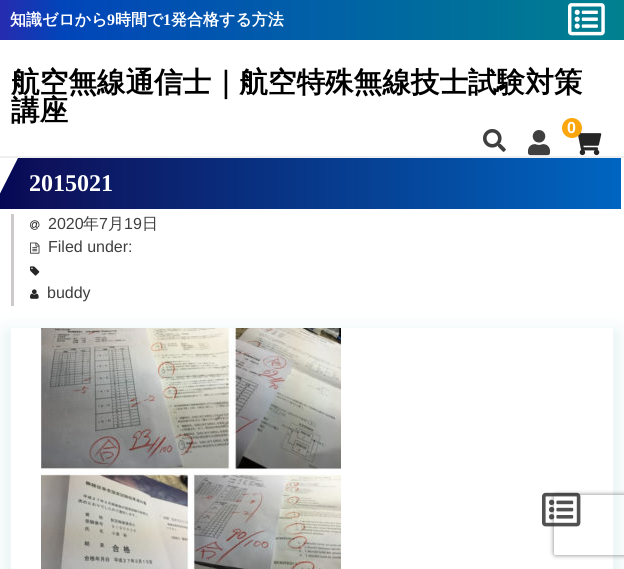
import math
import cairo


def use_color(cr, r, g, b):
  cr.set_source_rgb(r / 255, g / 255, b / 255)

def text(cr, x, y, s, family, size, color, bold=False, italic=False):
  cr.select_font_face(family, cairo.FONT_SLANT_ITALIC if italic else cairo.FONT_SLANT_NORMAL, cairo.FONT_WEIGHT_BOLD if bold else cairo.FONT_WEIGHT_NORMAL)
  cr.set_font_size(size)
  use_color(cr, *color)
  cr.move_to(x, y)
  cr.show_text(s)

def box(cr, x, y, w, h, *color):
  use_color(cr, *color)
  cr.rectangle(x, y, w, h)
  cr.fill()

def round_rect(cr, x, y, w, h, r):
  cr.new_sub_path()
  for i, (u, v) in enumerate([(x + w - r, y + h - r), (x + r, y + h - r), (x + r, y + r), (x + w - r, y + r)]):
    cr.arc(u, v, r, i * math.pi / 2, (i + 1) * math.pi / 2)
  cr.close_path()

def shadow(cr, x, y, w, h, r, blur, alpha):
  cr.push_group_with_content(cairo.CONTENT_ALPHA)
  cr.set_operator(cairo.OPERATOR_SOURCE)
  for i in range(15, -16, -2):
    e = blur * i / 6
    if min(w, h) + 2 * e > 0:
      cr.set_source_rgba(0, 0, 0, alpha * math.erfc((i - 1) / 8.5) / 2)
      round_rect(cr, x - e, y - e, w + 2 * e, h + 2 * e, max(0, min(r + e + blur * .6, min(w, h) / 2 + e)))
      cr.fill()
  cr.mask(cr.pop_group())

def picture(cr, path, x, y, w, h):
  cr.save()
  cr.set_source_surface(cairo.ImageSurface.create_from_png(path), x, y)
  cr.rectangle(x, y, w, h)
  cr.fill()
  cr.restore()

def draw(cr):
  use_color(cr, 255, 255, 255)
  cr.paint()
  gradient = cairo.LinearGradient(-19, 184, 621, 183)
  gradient.add_color_stop_rgba(0, 0, 0.02, 0.322, 1)
  gradient.add_color_stop_rgba(0.1, 0.055, 0.067, 0.357, 1)
  gradient.add_color_stop_rgba(1, 0, 0.4, 0.757, 1)
  cr.set_source(gradient)
  cr.rectangle(0, 158, 621, 51)
  cr.fill()
  use_color(cr, 255, 255, 255)
  cr.new_path()
  cr.move_to(-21, 235)
  cr.line_to(-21, 156)
  cr.line_to(19, 156)
  cr.close_path()
  cr.fill()
  box(cr, 0, 156, 624, 2, 239, 239, 239)
  gradient = cairo.LinearGradient(0, 20, 624, 20)
  gradient.add_color_stop_rgba(0, 0.153, 0.169, 0.686, 1)
  gradient.add_color_stop_rgba(0.1, 0.004, 0.271, 0.729, 1)
  gradient.add_color_stop_rgba(1, 0, 0.506, 0.561, 1)
  cr.set_source(gradient)
  cr.rectangle(0, 0, 624, 40)
  cr.fill()
  picture(cr, "img_01.png", 578, 132, 24, 24)
  use_color(cr, 251, 166, 13)
  cr.arc(572, 128, 10, 0, 2 * math.pi)
  cr.fill()
  picture(cr, "img_02.png", 483, 129, 23, 23)
  picture(cr, "img_03.png", 528, 130, 22, 26)
  picture(cr, "img_04.png", 568, 3, 37, 33)
  box(cr, 11, 214, 3, 92, 204, 202, 202)
  cr.save()
  cr.set_fill_rule(cairo.FILL_RULE_EVEN_ODD)
  cr.new_path()
  cr.move_to(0, 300)
  cr.line_to(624, 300)
  cr.line_to(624, 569)
  cr.line_to(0, 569)
  cr.close_path()
  cr.move_to(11, 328)
  cr.line_to(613, 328)
  cr.line_to(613, 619)
  cr.line_to(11, 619)
  cr.close_path()
  cr.clip()
  use_color(cr, 21, 130, 143)
  shadow(cr, 6, 331, 612, 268, 0, 10, 0.12)
  cr.restore()
  cr.save()
  cr.set_fill_rule(cairo.FILL_RULE_EVEN_ODD)
  cr.new_path()
  cr.move_to(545, 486)
  cr.line_to(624, 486)
  cr.line_to(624, 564)
  cr.line_to(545, 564)
  cr.close_path()
  cr.move_to(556, 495)
  cr.line_to(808, 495)
  cr.curve_to(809, 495, 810, 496, 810, 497)
  cr.line_to(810, 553)
  cr.curve_to(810, 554, 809, 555, 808, 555)
  cr.line_to(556, 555)
  cr.curve_to(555, 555, 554, 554, 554, 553)
  cr.line_to(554, 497)
  cr.curve_to(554, 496, 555, 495, 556, 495)
  cr.close_path()
  cr.clip()
  use_color(cr, 128, 128, 128)
  shadow(cr, 554, 495, 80, 60, 2, 2.5, 1)
  cr.restore()
  picture(cr, "img_05.png", 542, 492, 39, 35)
  picture(cr, "img_06.png", 30, 220, 10, 10)
  picture(cr, "img_07.png", 30, 242, 10, 12)
  picture(cr, "img_08.png", 30, 266, 10, 10)
  picture(cr, "img_09.png", 30, 289, 9, 10)
  picture(cr, "img_10.png", 41, 328, 300, 241)
  text(cr, 10, 25, "知識ゼロから", "WenQuanYi Zen Hei", 16, (255, 255, 255), bold=True)
  text(cr, 107, 25, "9", "Liberation Serif", 16, (255, 255, 255), bold=True)
  text(cr, 115, 25, "時間で", "WenQuanYi Zen Hei", 16, (255, 255, 255), bold=True)
  text(cr, 163, 25, "1", "Liberation Serif", 16, (255, 255, 255), bold=True)
  text(cr, 171, 25, "発合格する方法", "WenQuanYi Zen Hei", 16, (255, 255, 255), bold=True)
  text(cr, 11, 92, "航空無線通信士｜航空特殊無線技士試験対策", "WenQuanYi Zen Hei", 28.6, (0, 0, 0), bold=True)
  text(cr, 11, 120, "講座", "WenQuanYi Zen Hei", 28.6, (0, 0, 0), bold=True)
  text(cr, 567, 133, "0", "Liberation Sans", 16, (255, 255, 255), bold=True)
  text(cr, 29, 191, "2015021", "Liberation Serif", 24, (255, 255, 255), bold=True)
  text(cr, 48, 229, "2020", "Liberation Sans", 16, (63, 63, 63))
  text(cr, 83, 229, "年", "WenQuanYi Zen Hei Medium", 16, (63, 63, 63))
  text(cr, 99, 229, "7", "Liberation Sans", 16, (63, 63, 63))
  text(cr, 108, 229, "月", "WenQuanYi Zen Hei Medium", 16, (63, 63, 63))
  text(cr, 124, 229, "19", "Liberation Sans", 16, (63, 63, 63))
  text(cr, 142, 229, "日", "WenQuanYi Zen Hei Medium", 16, (63, 63, 63))
  text(cr, 48, 252, "Filed under:", "Liberation Sans", 16, (63, 63, 63))
  text(cr, 47, 298, "buddy", "Liberation Sans", 16, (63, 63, 63))


surface = cairo.ImageSurface(cairo.FORMAT_RGB24, 624, 569)
cr = cairo.Context(surface)
options = cairo.FontOptions()
options.set_hint_metrics(cairo.HINT_METRICS_OFF)
options.set_hint_style(cairo.HINT_STYLE_NONE)
cr.set_font_options(options)
cr.set_miter_limit(4)
draw(cr)
surface.write_to_png("out.png")
